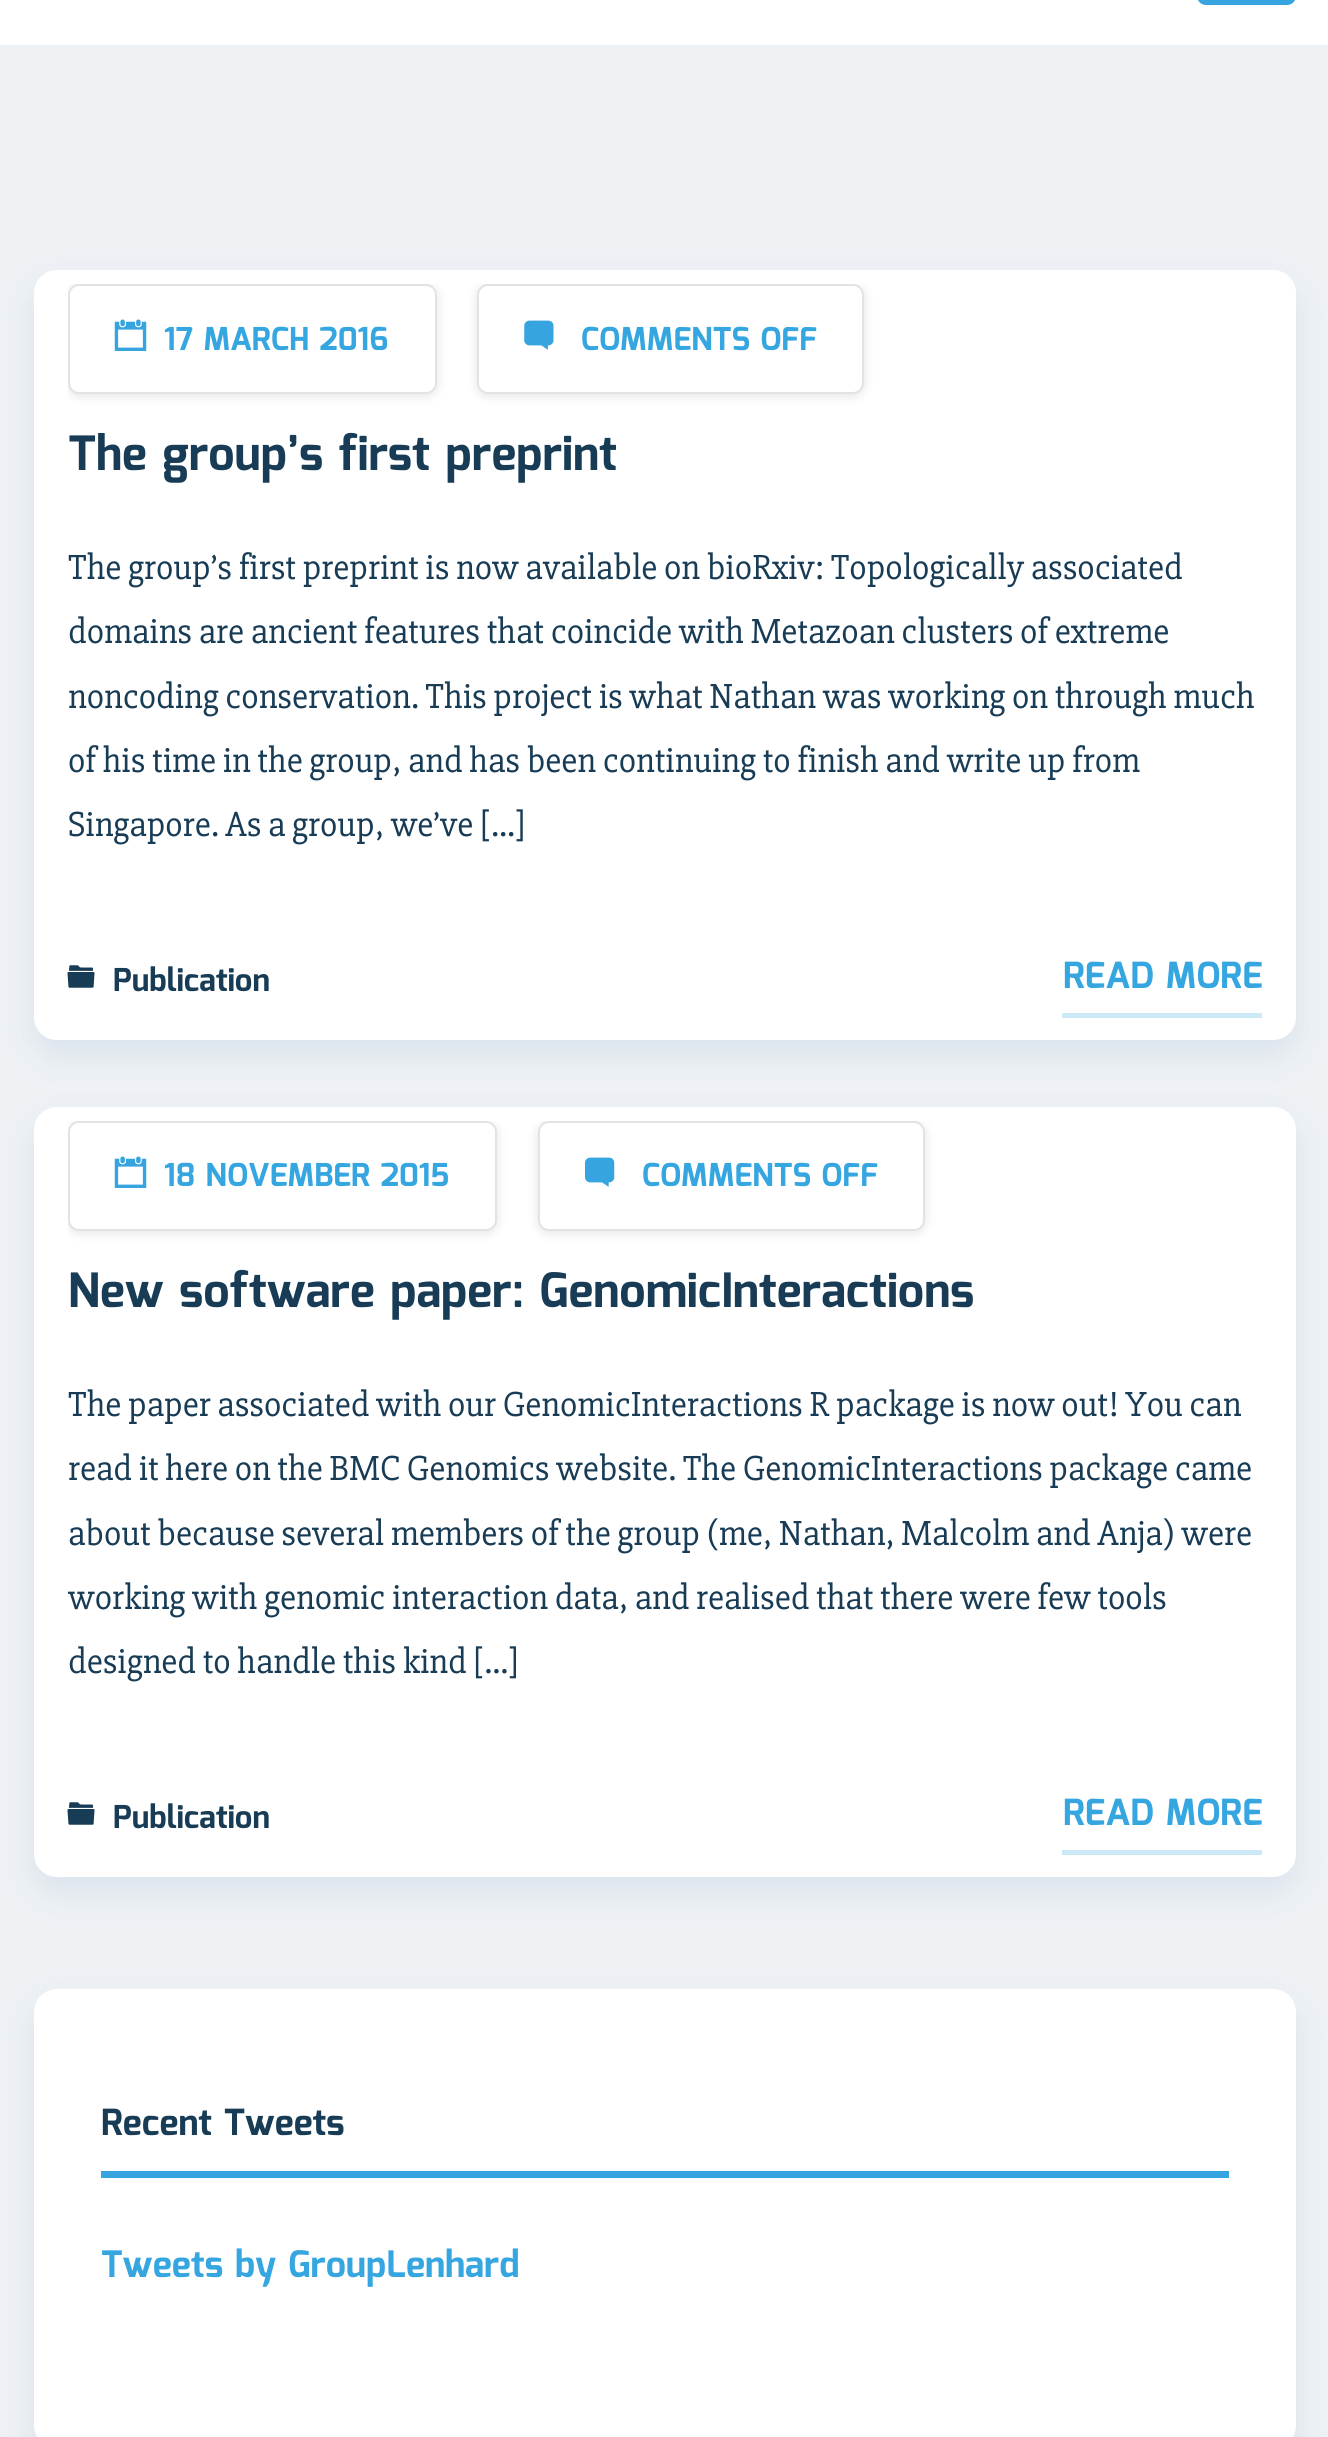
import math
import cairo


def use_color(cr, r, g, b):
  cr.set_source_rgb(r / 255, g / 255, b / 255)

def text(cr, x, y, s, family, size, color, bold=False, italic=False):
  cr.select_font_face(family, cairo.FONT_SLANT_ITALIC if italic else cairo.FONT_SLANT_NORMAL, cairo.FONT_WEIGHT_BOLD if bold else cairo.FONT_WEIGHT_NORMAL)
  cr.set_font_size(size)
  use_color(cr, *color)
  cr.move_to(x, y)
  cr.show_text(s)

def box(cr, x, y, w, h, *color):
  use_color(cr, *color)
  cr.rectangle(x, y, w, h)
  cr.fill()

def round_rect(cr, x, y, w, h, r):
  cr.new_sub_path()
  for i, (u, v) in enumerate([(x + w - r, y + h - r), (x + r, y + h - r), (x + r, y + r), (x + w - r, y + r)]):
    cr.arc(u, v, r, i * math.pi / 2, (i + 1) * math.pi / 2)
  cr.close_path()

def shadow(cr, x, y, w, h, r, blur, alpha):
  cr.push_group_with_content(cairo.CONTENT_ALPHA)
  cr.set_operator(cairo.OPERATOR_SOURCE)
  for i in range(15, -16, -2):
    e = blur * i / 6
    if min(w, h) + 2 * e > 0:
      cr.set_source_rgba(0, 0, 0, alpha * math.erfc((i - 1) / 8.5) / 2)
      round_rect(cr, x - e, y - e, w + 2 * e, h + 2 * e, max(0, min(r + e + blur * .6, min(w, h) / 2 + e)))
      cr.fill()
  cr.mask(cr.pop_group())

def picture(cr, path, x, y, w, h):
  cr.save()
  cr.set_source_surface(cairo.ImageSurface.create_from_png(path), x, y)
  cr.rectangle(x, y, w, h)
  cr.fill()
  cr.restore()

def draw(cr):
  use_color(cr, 255, 255, 255)
  cr.paint()
  use_color(cr, 54, 164, 222)
  round_rect(cr, 1197, -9, 99, 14, 9)
  cr.fill()
  box(cr, 0, 45, 1328, 2392, 238, 242, 245)
  use_color(cr, 0, 56, 129)
  shadow(cr, 34, 286, 1262, 769, 23, 17, 0.09)
  use_color(cr, 255, 255, 255)
  round_rect(cr, 34, 270, 1262, 770, 23)
  cr.fill()
  cr.save()
  cr.rectangle(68, 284, 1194, 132)
  cr.clip()
  use_color(cr, 0, 0, 0)
  shadow(cr, 68, 286, 369, 110, 11, 5.5, 0.11)
  cr.restore()
  round_rect(cr, 68, 284, 369, 110, 11)
  cr.fill()
  round_rect(cr, 69, 285, 367, 108, 10)
  cr.set_source_rgba(0, 0, 0, 0.11)
  cr.stroke()
  picture(cr, "img_01.png", 114, 319, 33, 32)
  cr.save()
  cr.rectangle(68, 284, 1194, 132)
  cr.clip()
  use_color(cr, 0, 0, 0)
  shadow(cr, 477, 286, 387, 110, 11, 5.5, 0.11)
  cr.restore()
  use_color(cr, 255, 255, 255)
  round_rect(cr, 477, 284, 387, 110, 11)
  cr.fill()
  round_rect(cr, 478, 285, 385, 108, 10)
  cr.set_source_rgba(0, 0, 0, 0.11)
  cr.stroke()
  picture(cr, "img_02.png", 524, 320, 30, 30)
  picture(cr, "img_03.png", 67, 965, 28, 23)
  box(cr, 1062, 1013, 200, 5, 204, 233, 247)
  use_color(cr, 0, 56, 129)
  shadow(cr, 34, 1123, 1262, 769, 23, 17, 0.09)
  use_color(cr, 255, 255, 255)
  round_rect(cr, 34, 1107, 1262, 770, 23)
  cr.fill()
  cr.save()
  cr.rectangle(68, 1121, 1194, 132)
  cr.clip()
  use_color(cr, 0, 0, 0)
  shadow(cr, 68, 1123, 429, 110, 11, 5.5, 0.11)
  cr.restore()
  round_rect(cr, 68, 1121, 429, 110, 11)
  cr.fill()
  round_rect(cr, 69, 1122, 427, 108, 10)
  cr.set_source_rgba(0, 0, 0, 0.11)
  cr.stroke()
  picture(cr, "img_01.png", 114, 1156, 33, 32)
  cr.save()
  cr.rectangle(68, 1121, 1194, 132)
  cr.clip()
  use_color(cr, 0, 0, 0)
  shadow(cr, 538, 1123, 387, 110, 11, 5.5, 0.11)
  cr.restore()
  use_color(cr, 255, 255, 255)
  round_rect(cr, 538, 1121, 387, 110, 11)
  cr.fill()
  round_rect(cr, 539, 1122, 385, 108, 10)
  cr.set_source_rgba(0, 0, 0, 0.11)
  cr.stroke()
  picture(cr, "img_04.png", 585, 1157, 30, 30)
  picture(cr, "img_03.png", 67, 1802, 28, 23)
  box(cr, 1062, 1850, 200, 5, 204, 233, 247)
  use_color(cr, 0, 56, 129)
  shadow(cr, 34, 2005, 1262, 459, 23, 17, 0.09)
  use_color(cr, 255, 255, 255)
  round_rect(cr, 34, 1989, 1262, 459, 23)
  cr.fill()
  box(cr, 101, 2171, 1128, 7, 54, 164, 222)
  text(cr, 164, 350, "17 MARCH 2016", "Mina", 31.5, (53, 166, 224), bold=True)
  text(cr, 581, 350, "COMMENTS OFF", "Mina", 31.5, (53, 166, 224), bold=True)
  text(cr, 68, 470, "The group’s first preprint", "Mina", 47.25, (24, 60, 85), bold=True)
  text(cr, 68, 579, "The group’s first preprint is now available on bioRxiv: Topologically associated", "Slabo 27px", 36, (24, 60, 85))
  text(cr, 68, 643, "domains are ancient features that coincide with Metazoan clusters of extreme", "Slabo 27px", 36, (24, 60, 85))
  text(cr, 68, 708, "noncoding conservation. This project is what Nathan was working on through much", "Slabo 27px", 36, (24, 60, 85))
  text(cr, 68, 772, "of his time in the group, and has been continuing to finish and write up from", "Slabo 27px", 36, (24, 60, 85))
  text(cr, 68, 836, "Singapore. As a group, we’ve […]", "Slabo 27px", 36, (24, 60, 85))
  text(cr, 113, 991, "Publication", "Mina", 31.5, (24, 60, 85), bold=True)
  text(cr, 1063, 988, "READ MORE", "Mina", 36, (53, 166, 224), bold=True)
  text(cr, 164, 1186, "18 NOVEMBER 2015", "Mina", 31.5, (53, 166, 224), bold=True)
  text(cr, 642, 1186, "COMMENTS OFF", "Mina", 31.5, (53, 166, 224), bold=True)
  text(cr, 68, 1307, "New software paper: GenomicInteractions", "Mina", 47.25, (24, 60, 85), bold=True)
  text(cr, 68, 1416, "The paper associated with our GenomicInteractions R package is now out! You can", "Slabo 27px", 36, (24, 60, 85))
  text(cr, 68, 1480, "read it here on the BMC Genomics website. The GenomicInteractions package came", "Slabo 27px", 36, (24, 60, 85))
  text(cr, 68, 1545, "about because several members of the group (me, Nathan, Malcolm and Anja) were", "Slabo 27px", 36, (24, 60, 85))
  cr.save()
  cr.rectangle(68, 1373, 1194, 321)
  cr.clip()
  text(cr, 68, 1609, "working with genomic interaction data, and realised that there were few tools", "Slabo 27px", 36, (24, 60, 85))
  cr.restore()
  text(cr, 68, 1673, "designed to handle this kind […]", "Slabo 27px", 36, (24, 60, 85))
  text(cr, 113, 1828, "Publication", "Mina", 31.5, (24, 60, 85), bold=True)
  text(cr, 1063, 1825, "READ MORE", "Mina", 36, (53, 166, 224), bold=True)
  text(cr, 101, 2135, "Recent Tweets", "Mina", 36, (24, 60, 85), bold=True)
  text(cr, 101, 2277, "Tweets by GroupLenhard", "Mina", 36.4, (53, 166, 224), bold=True)


surface = cairo.ImageSurface(cairo.FORMAT_RGB24, 1328, 2437)
cr = cairo.Context(surface)
options = cairo.FontOptions()
options.set_hint_metrics(cairo.HINT_METRICS_OFF)
options.set_hint_style(cairo.HINT_STYLE_NONE)
cr.set_font_options(options)
cr.set_miter_limit(4)
draw(cr)
surface.write_to_png("out.png")
